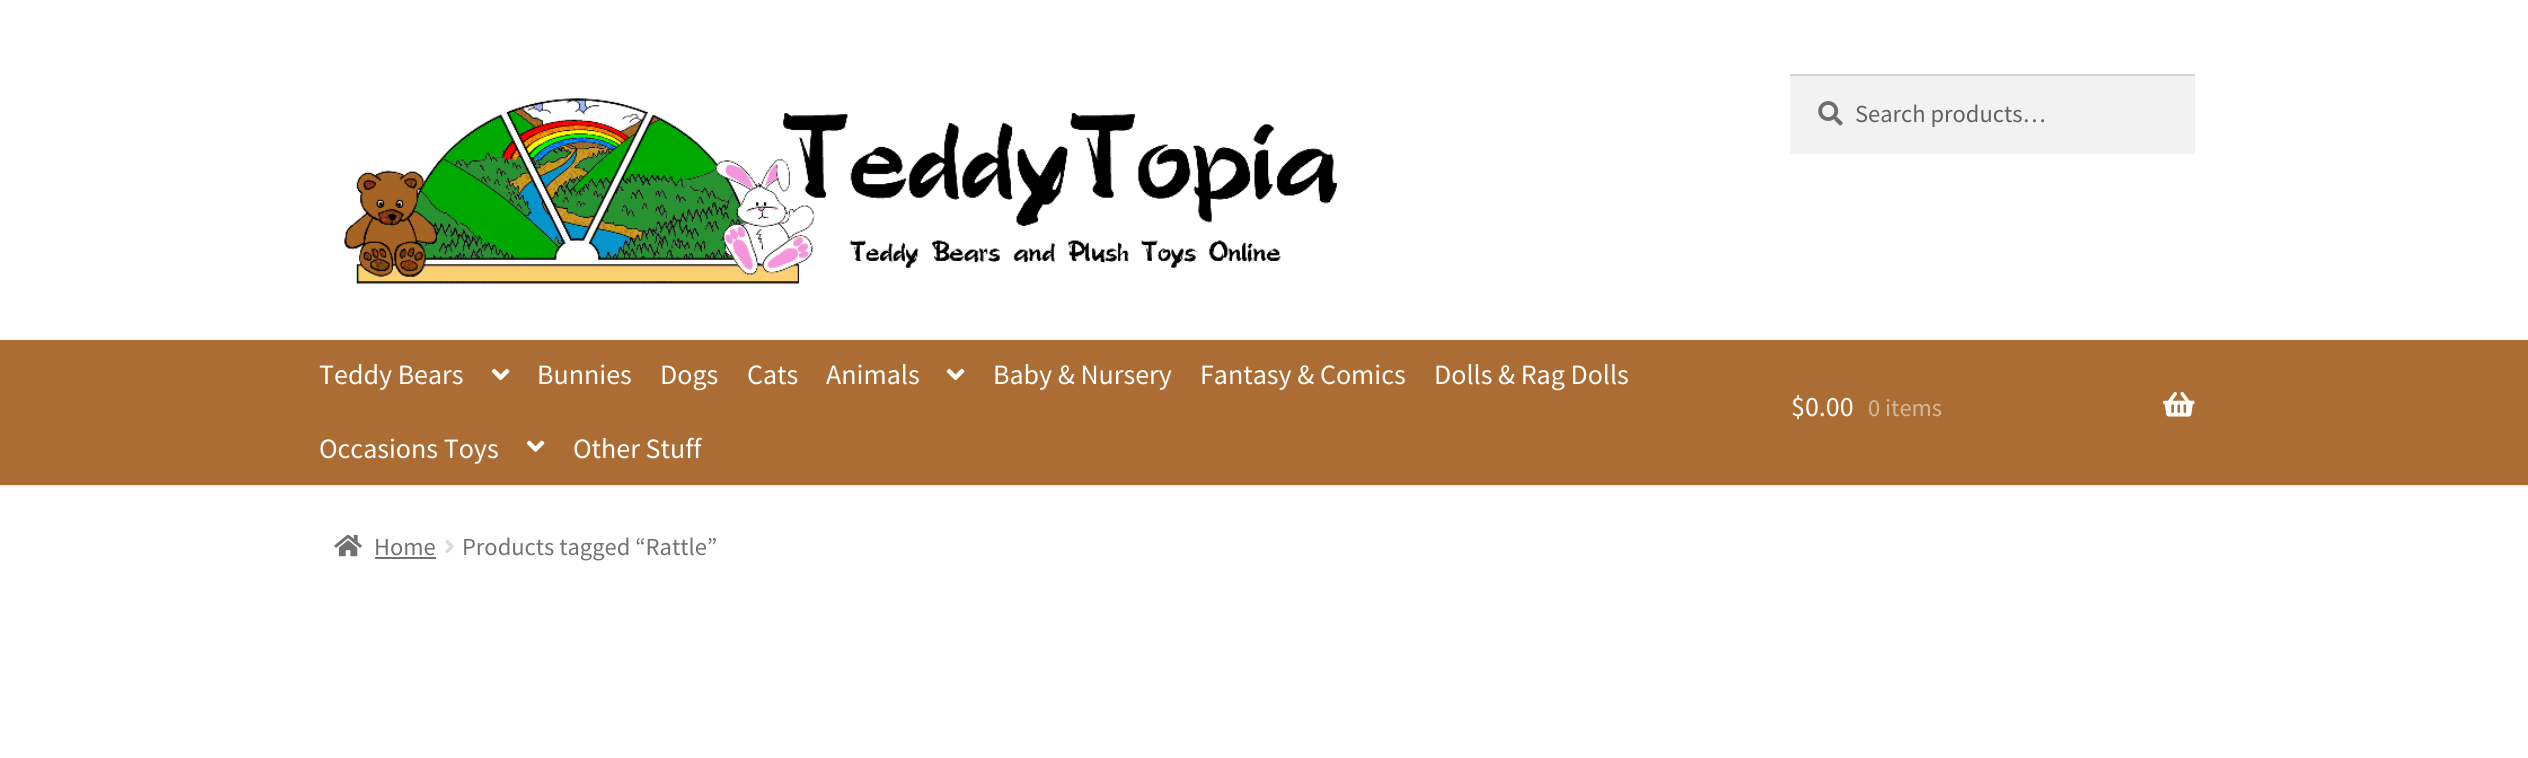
import math
import cairo


def use_color(cr, r, g, b):
  cr.set_source_rgb(r / 255, g / 255, b / 255)

def text(cr, x, y, s, family, size, color, bold=False, italic=False):
  cr.select_font_face(family, cairo.FONT_SLANT_ITALIC if italic else cairo.FONT_SLANT_NORMAL, cairo.FONT_WEIGHT_BOLD if bold else cairo.FONT_WEIGHT_NORMAL)
  cr.set_font_size(size)
  use_color(cr, *color)
  cr.move_to(x, y)
  cr.show_text(s)

def box(cr, x, y, w, h, *color):
  use_color(cr, *color)
  cr.rectangle(x, y, w, h)
  cr.fill()

def picture(cr, path, x, y, w, h):
  cr.save()
  cr.set_source_surface(cairo.ImageSurface.create_from_png(path), x, y)
  cr.rectangle(x, y, w, h)
  cr.fill()
  cr.restore()

def draw(cr):
  use_color(cr, 255, 255, 255)
  cr.paint()
  box(cr, 0, 485, 2528, 2, 240, 240, 240)
  picture(cr, "img_01.png", 344, 98, 993, 186)
  box(cr, 1790, 76, 405, 78, 242, 242, 242)
  picture(cr, "img_02.png", 1818, 101, 25, 25)
  box(cr, 1790, 74, 405, 2, 212, 212, 212)
  box(cr, 0, 340, 2528, 145, 171, 109, 52)
  picture(cr, "img_03.png", 491, 368, 19, 13)
  picture(cr, "img_03.png", 946, 368, 19, 13)
  picture(cr, "img_04.png", 526, 440, 19, 12)
  picture(cr, "img_05.png", 2163, 392, 32, 25)
  picture(cr, "img_06.png", 334, 534, 28, 23)
  box(cr, 375, 557, 61, 2, 114, 114, 114)
  picture(cr, "img_07.png", 445, 539, 9, 15)
  text(cr, 1855, 122, "Search products…", "Source Sans Pro", 24.5, (97, 97, 97))
  text(cr, 319, 384, "Teddy Bears", "Source Sans Pro", 28, (255, 255, 255))
  text(cr, 537, 384, "Bunnies", "Source Sans Pro", 28, (255, 255, 255))
  text(cr, 660, 384, "Dogs", "Source Sans Pro", 28, (255, 255, 255))
  text(cr, 747, 384, "Cats", "Source Sans Pro", 28, (255, 255, 255))
  text(cr, 826, 384, "Animals", "Source Sans Pro", 28, (255, 255, 255))
  text(cr, 993, 384, "Baby & Nursery", "Source Sans Pro", 28, (255, 255, 255))
  text(cr, 1200, 384, "Fantasy & Comics", "Source Sans Pro", 28, (255, 255, 255))
  text(cr, 1434, 384, "Dolls & Rag Dolls", "Source Sans Pro", 28, (255, 255, 255))
  text(cr, 319, 458, "Occasions Toys", "Source Sans Pro", 28, (255, 255, 255))
  text(cr, 573, 458, "Other Stuff", "Source Sans Pro", 28, (255, 255, 255))
  text(cr, 1791, 416, "$0.00", "Source Sans Pro", 28, (255, 255, 255))
  text(cr, 1868, 416, "0 items", "Source Sans Pro", 24.5, (213, 182, 154))
  text(cr, 374, 555, "Home", "Source Sans Pro", 24.5, (114, 114, 114))
  text(cr, 462, 555, "Products tagged “Rattle”", "Source Sans Pro", 24.5, (114, 114, 114))


surface = cairo.ImageSurface(cairo.FORMAT_RGB24, 2528, 758)
cr = cairo.Context(surface)
options = cairo.FontOptions()
options.set_hint_metrics(cairo.HINT_METRICS_OFF)
options.set_hint_style(cairo.HINT_STYLE_NONE)
cr.set_font_options(options)
cr.set_miter_limit(4)
draw(cr)
surface.write_to_png("out.png")
